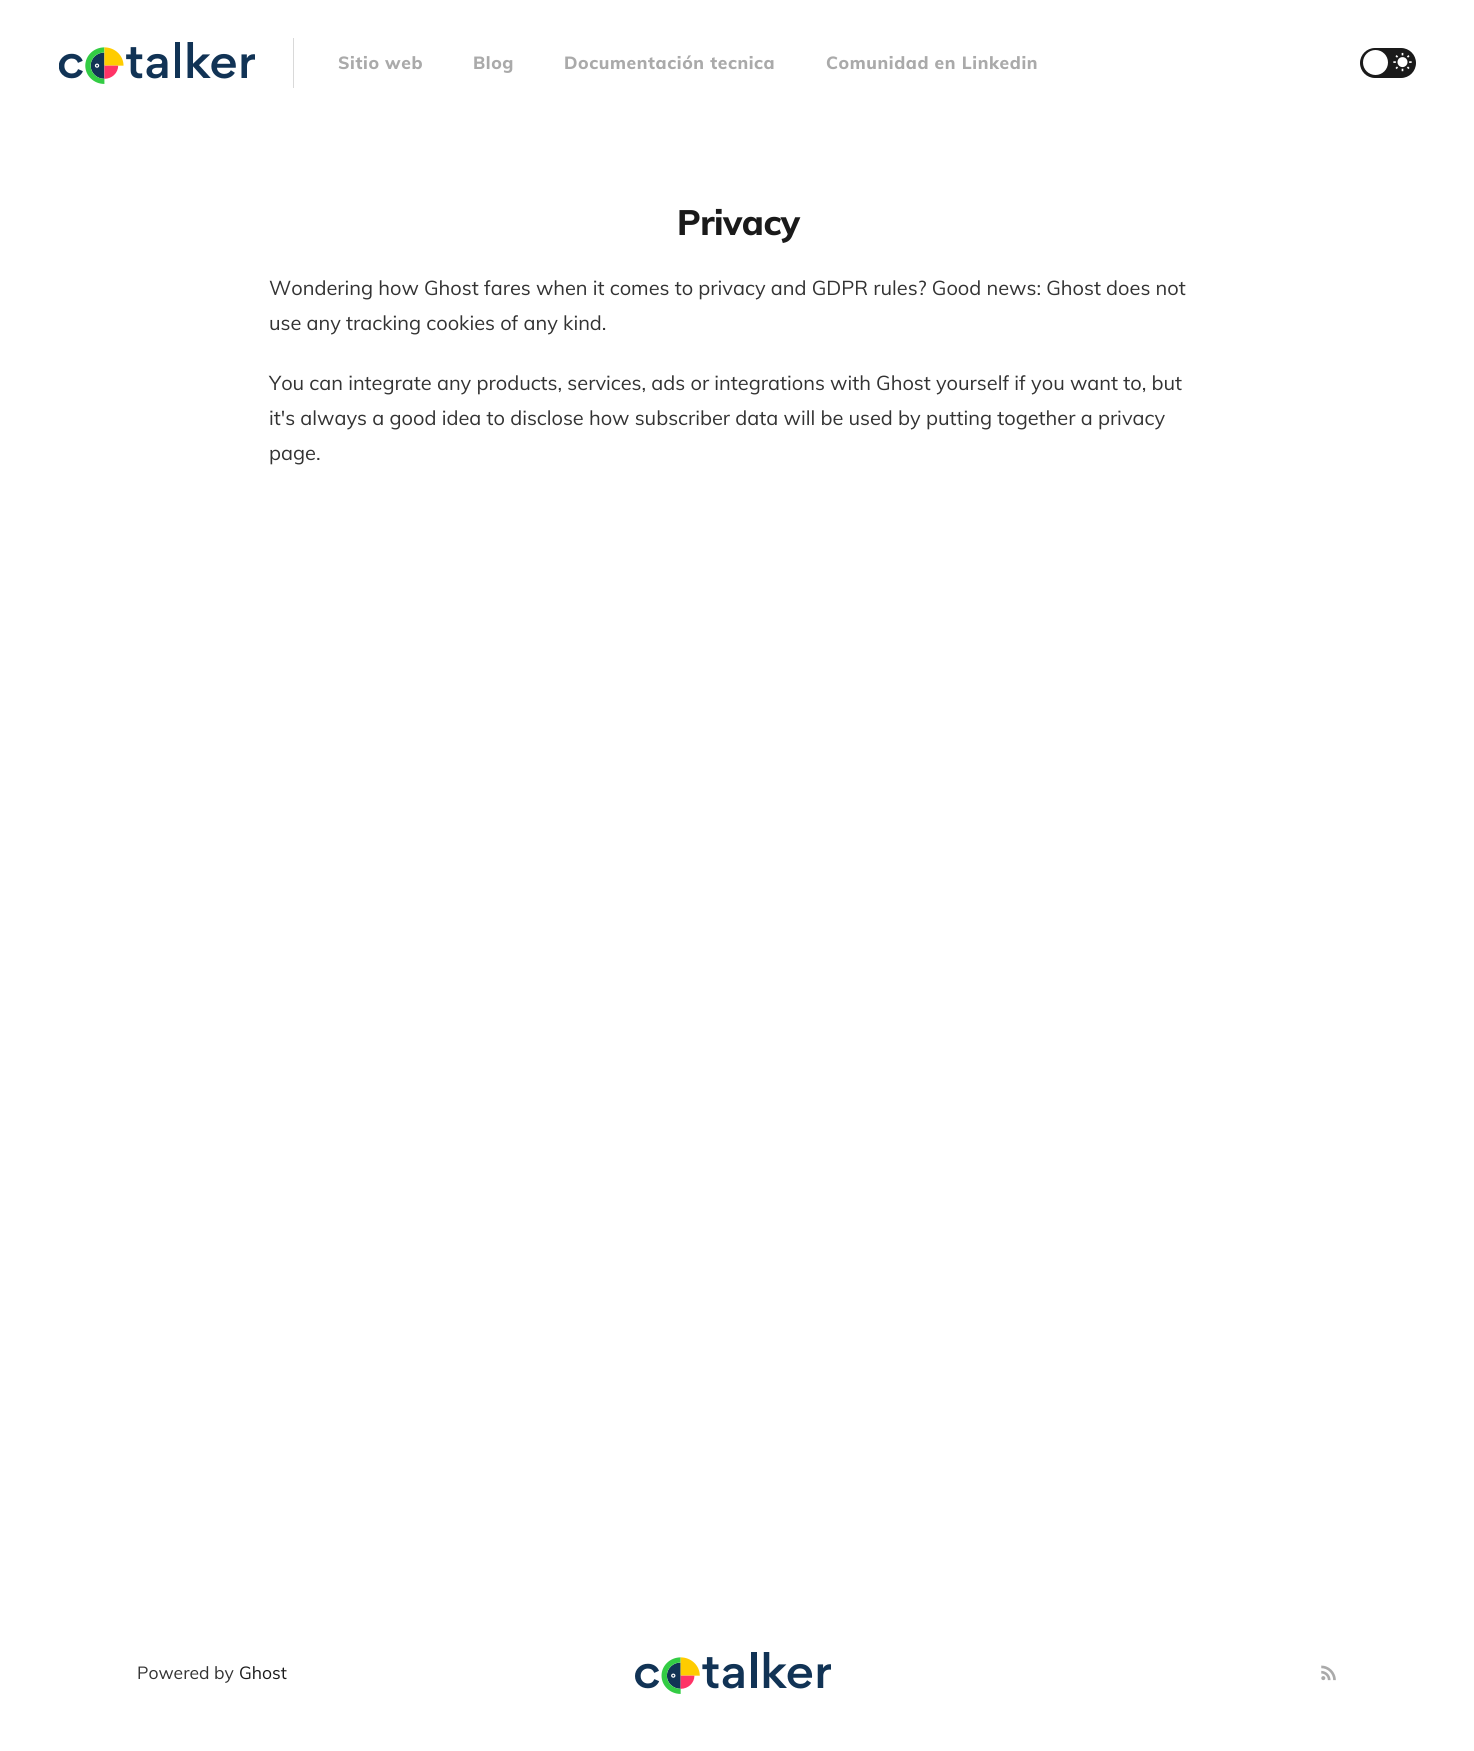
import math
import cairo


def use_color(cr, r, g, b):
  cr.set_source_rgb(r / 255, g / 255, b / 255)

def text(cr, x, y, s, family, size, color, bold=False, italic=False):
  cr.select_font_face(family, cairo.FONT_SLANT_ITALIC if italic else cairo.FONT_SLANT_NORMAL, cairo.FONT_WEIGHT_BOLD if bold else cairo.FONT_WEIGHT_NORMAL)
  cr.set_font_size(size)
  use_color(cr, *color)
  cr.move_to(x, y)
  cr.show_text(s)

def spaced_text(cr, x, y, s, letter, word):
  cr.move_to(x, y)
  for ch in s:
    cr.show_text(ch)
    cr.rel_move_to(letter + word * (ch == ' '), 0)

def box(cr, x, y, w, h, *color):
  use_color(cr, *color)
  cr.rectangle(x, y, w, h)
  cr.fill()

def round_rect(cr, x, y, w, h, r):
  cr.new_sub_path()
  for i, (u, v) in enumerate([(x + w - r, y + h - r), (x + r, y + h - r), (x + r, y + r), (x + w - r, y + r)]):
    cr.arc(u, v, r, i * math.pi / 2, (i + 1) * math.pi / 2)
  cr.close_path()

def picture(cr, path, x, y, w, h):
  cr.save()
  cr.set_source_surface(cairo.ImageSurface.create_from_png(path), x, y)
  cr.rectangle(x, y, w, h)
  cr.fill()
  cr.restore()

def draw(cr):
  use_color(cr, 255, 255, 255)
  cr.paint()
  picture(cr, "img_01.png", 59, 42, 196, 42)
  box(cr, 293, 38, 1, 50, 217, 217, 217)
  use_color(cr, 26, 26, 26)
  round_rect(cr, 1360, 48, 56, 30, 15)
  cr.fill()
  use_color(cr, 255, 255, 255)
  cr.arc(1375.5, 62.5, 12.5, 0, 2 * math.pi)
  cr.fill()
  picture(cr, "img_02.png", 1393, 52, 19, 20)
  picture(cr, "img_03.png", 635, 1652, 196, 42)
  picture(cr, "img_04.png", 1321, 1665, 15, 16)
  cr.select_font_face("Muli ExtraBold")
  cr.set_font_size(17.5)
  use_color(cr, 170, 170, 170)
  spaced_text(cr, 338, 69, "Sitio web", 0.6, 0)
  spaced_text(cr, 473, 69, "Blog", 0.6, 0)
  spaced_text(cr, 564, 69, "Documentación tecnica", 0.6, 0)
  spaced_text(cr, 826, 69, "Comunidad en Linkedin", 0.6, 0)
  cr.set_font_size(35)
  use_color(cr, 26, 26, 26)
  spaced_text(cr, 677, 235, "Privacy", -0.5, 0)
  text(cr, 269, 295, "Wondering how Ghost fares when it comes to privacy and GDPR rules? Good news: Ghost does not", "Muli", 20, (51, 51, 51))
  text(cr, 269, 330, "use any tracking cookies of any kind.", "Muli", 20, (51, 51, 51))
  text(cr, 269, 390, "You can integrate any products, services, ads or integrations with Ghost yourself if you want to, but", "Muli", 20, (51, 51, 51))
  text(cr, 269, 425, "it's always a good idea to disclose how subscriber data will be used by putting together a privacy", "Muli", 20, (51, 51, 51))
  text(cr, 269, 460, "page.", "Muli", 20, (51, 51, 51))
  text(cr, 137, 1679, "Powered by", "Muli", 17.5, (51, 51, 51))
  text(cr, 239, 1679, "Ghost", "Muli", 17.5, (26, 26, 26))


surface = cairo.ImageSurface(cairo.FORMAT_RGB24, 1474, 1751)
cr = cairo.Context(surface)
options = cairo.FontOptions()
options.set_hint_metrics(cairo.HINT_METRICS_OFF)
options.set_hint_style(cairo.HINT_STYLE_NONE)
cr.set_font_options(options)
cr.set_miter_limit(4)
draw(cr)
surface.write_to_png("out.png")
